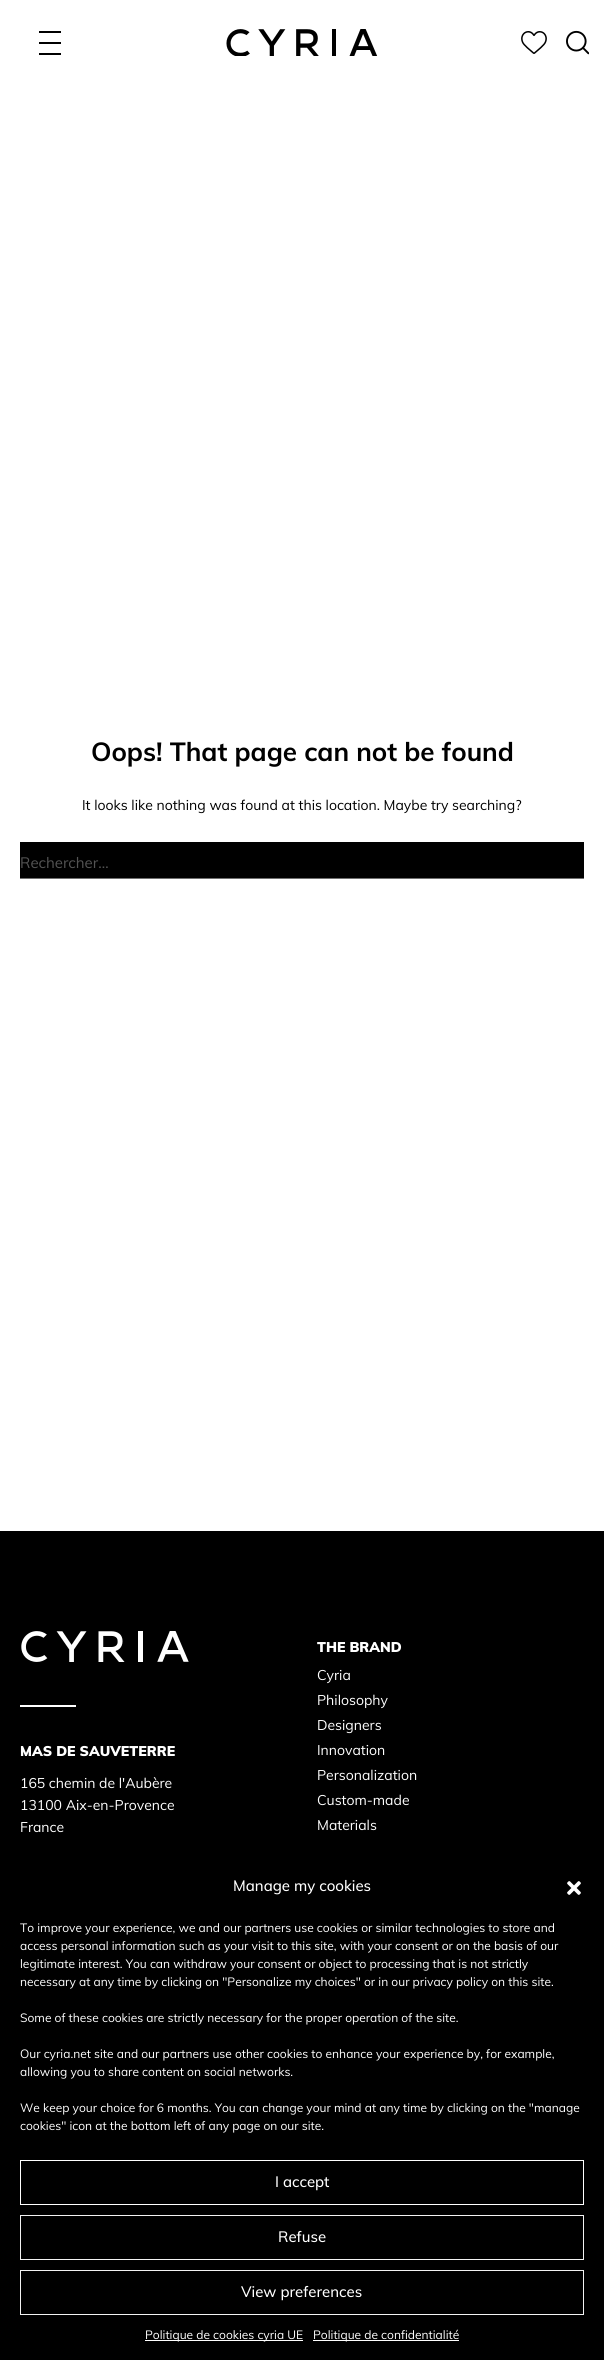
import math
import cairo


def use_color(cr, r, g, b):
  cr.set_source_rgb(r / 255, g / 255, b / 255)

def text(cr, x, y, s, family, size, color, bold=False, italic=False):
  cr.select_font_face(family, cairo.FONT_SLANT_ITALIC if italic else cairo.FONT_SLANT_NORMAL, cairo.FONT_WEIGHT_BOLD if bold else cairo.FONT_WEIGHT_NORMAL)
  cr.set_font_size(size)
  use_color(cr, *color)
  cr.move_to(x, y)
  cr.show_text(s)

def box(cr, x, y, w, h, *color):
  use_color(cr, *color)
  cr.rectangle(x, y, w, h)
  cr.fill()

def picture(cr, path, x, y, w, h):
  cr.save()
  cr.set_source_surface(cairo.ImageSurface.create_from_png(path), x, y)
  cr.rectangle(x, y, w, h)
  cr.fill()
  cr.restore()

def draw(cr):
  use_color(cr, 255, 255, 255)
  cr.paint()
  box(cr, 39, 31, 22, 2, 0, 0, 0)
  box(cr, 39, 42, 22, 2, 0, 0, 0)
  box(cr, 39, 53, 22, 2, 0, 0, 0)
  picture(cr, "img_01.png", 226, 29, 152, 27)
  picture(cr, "img_02.png", 521, 31, 26, 23)
  picture(cr, "img_03.png", 566, 30, 23, 25)
  box(cr, 20, 842, 564, 36, 0, 0, 0)
  box(cr, 20, 878, 564, 1, 112, 112, 112)
  box(cr, 0, 1531, 604, 829, 0, 0, 0)
  picture(cr, "img_04.png", 21, 1631, 168, 31)
  box(cr, 20, 1705, 56, 2, 255, 255, 255)
  picture(cr, "img_05.png", 567, 1881, 14, 14)
  cr.rectangle(20.5, 2160.5, 563, 44)
  cr.set_line_width(1)
  cr.stroke()
  cr.rectangle(20.5, 2215.5, 563, 44)
  use_color(cr, 242, 242, 242)
  cr.stroke()
  cr.rectangle(20.5, 2270.5, 563, 44)
  cr.stroke()
  box(cr, 145, 2340, 158, 1, 255, 255, 255)
  box(cr, 313, 2340, 146, 1, 255, 255, 255)
  text(cr, 91, 761, "Oops! That page can not be found", "Muli", 26, (0, 0, 0), bold=True)
  text(cr, 82, 810, "It looks like nothing was found at this location. Maybe try searching?", "Muli", 14, (0, 0, 0))
  text(cr, 20, 868, "Rechercher…", "Muli", 15, (84, 84, 84))
  text(cr, 20, 1756, "MAS DE SAUVETERRE", "Muli Black", 14, (255, 255, 255))
  text(cr, 20, 1788, "165 chemin de l'Aubère", "Muli", 14, (255, 255, 255))
  text(cr, 20, 1810, "13100 Aix-en-Provence", "Muli", 14, (255, 255, 255))
  text(cr, 20, 1832, "France", "Muli", 14, (255, 255, 255))
  text(cr, 317, 1652, "THE BRAND", "Muli Black", 14, (255, 255, 255))
  text(cr, 317, 1680, "Cyria", "Muli", 14, (255, 255, 255))
  text(cr, 317, 1705, "Philosophy", "Muli", 14, (255, 255, 255))
  text(cr, 317, 1730, "Designers", "Muli", 14, (255, 255, 255))
  text(cr, 317, 1755, "Innovation", "Muli", 14, (255, 255, 255))
  text(cr, 317, 1780, "Personalization", "Muli", 14, (255, 255, 255))
  text(cr, 317, 1805, "Custom-made", "Muli", 14, (255, 255, 255))
  text(cr, 317, 1830, "Materials", "Muli", 14, (255, 255, 255))
  text(cr, 233, 1891, "Manage my cookies", "Muli Medium", 15, (255, 255, 255))
  text(cr, 20, 1932, "To improve your experience, we and our partners use cookies or similar technologies to store and", "Muli", 12, (255, 255, 255))
  text(cr, 20, 1950, "access personal information such as your visit to this site, with your consent or on the basis of our", "Muli", 12, (255, 255, 255))
  text(cr, 20, 1968, "legitimate interest. You can withdraw your consent or object to processing that is not strictly", "Muli", 12, (255, 255, 255))
  text(cr, 20, 1986, "necessary at any time by clicking on \"Personalize my choices\" or in our privacy policy on this site.", "Muli", 12, (255, 255, 255))
  text(cr, 20, 2022, "Some of these cookies are strictly necessary for the proper operation of the site.", "Muli", 12, (255, 255, 255))
  text(cr, 20, 2058, "Our cyria.net site and our partners use other cookies to enhance your experience by, for example,", "Muli", 12, (255, 255, 255))
  text(cr, 20, 2076, "allowing you to share content on social networks.", "Muli", 12, (255, 255, 255))
  text(cr, 20, 2112, "We keep your choice for 6 months. You can change your mind at any time by clicking on the \"manage", "Muli", 12, (255, 255, 255))
  text(cr, 20, 2130, "cookies\" icon at the bottom left of any page on our site.", "Muli", 12, (255, 255, 255))
  text(cr, 275, 2187, "I accept", "Muli Medium", 15, (255, 255, 255))
  text(cr, 278, 2242, "Refuse", "Muli Medium", 15, (255, 255, 255))
  text(cr, 241, 2297, "View preferences", "Muli Medium", 15, (255, 255, 255))
  text(cr, 145, 2339, "Politique de cookies cyria UE", "Muli", 12, (255, 255, 255))
  text(cr, 313, 2339, "Politique de confidentialité", "Muli", 12, (255, 255, 255))


surface = cairo.ImageSurface(cairo.FORMAT_RGB24, 604, 2360)
cr = cairo.Context(surface)
options = cairo.FontOptions()
options.set_hint_metrics(cairo.HINT_METRICS_OFF)
options.set_hint_style(cairo.HINT_STYLE_NONE)
cr.set_font_options(options)
cr.set_miter_limit(4)
draw(cr)
surface.write_to_png("out.png")
